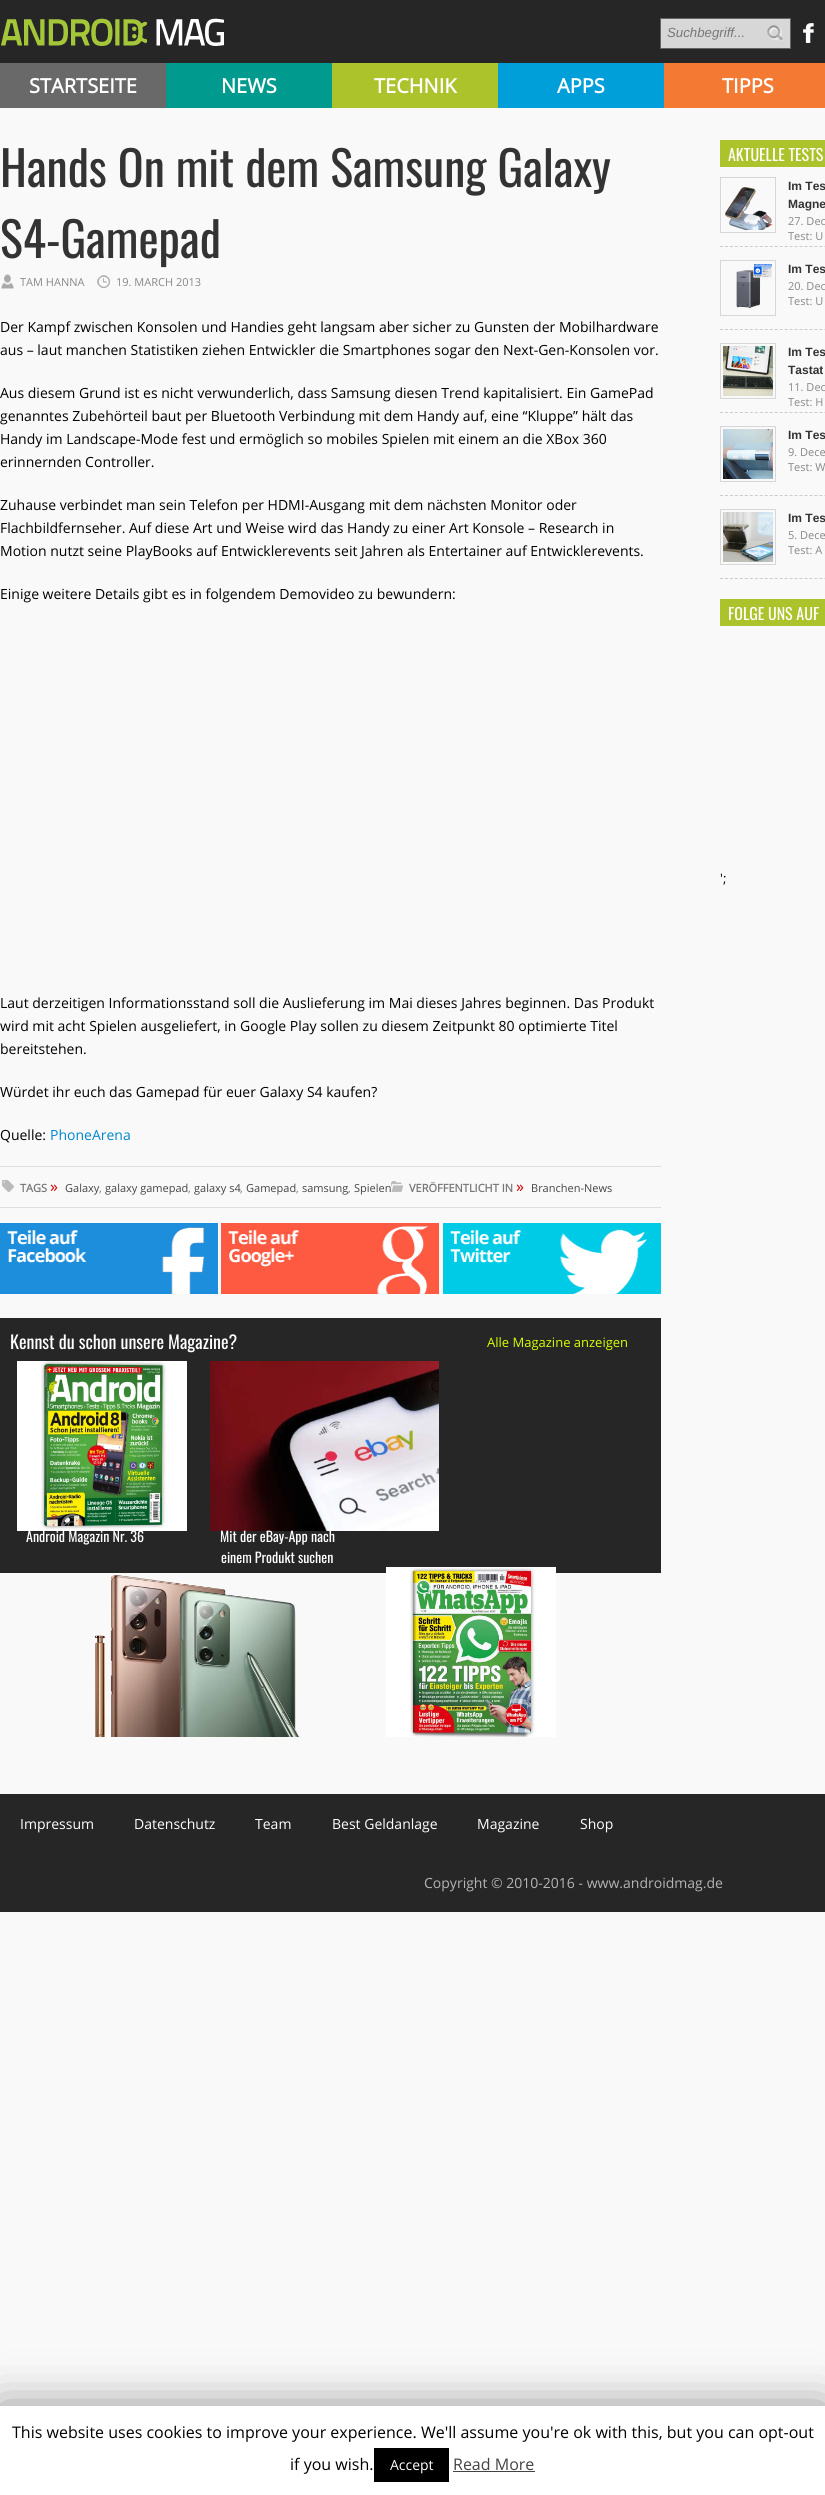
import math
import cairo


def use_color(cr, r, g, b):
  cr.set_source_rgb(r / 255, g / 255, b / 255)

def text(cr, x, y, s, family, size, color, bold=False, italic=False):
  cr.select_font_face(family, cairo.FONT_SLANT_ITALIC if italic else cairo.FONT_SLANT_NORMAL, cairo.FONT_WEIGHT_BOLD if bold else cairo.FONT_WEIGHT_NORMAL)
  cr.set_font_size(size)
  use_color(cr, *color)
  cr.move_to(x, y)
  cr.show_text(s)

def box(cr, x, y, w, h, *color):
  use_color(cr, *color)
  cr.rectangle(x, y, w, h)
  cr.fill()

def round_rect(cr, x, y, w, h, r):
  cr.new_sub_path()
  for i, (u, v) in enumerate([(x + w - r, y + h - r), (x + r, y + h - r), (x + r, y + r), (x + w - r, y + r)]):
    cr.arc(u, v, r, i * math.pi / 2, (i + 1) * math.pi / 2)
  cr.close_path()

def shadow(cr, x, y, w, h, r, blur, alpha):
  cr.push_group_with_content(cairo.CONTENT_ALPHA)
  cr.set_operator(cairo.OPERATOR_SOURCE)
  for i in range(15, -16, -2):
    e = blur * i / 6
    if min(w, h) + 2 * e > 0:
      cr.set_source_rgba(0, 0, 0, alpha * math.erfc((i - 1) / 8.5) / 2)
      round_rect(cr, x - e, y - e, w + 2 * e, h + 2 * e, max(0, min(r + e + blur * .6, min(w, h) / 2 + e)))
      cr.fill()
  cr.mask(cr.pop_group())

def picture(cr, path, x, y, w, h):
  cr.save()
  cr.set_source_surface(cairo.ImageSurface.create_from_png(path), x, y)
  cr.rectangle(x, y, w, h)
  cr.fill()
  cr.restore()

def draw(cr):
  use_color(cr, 249, 249, 249)
  cr.paint()
  box(cr, 0, 0, 825, 63, 38, 38, 38)
  picture(cr, "img_01.png", 1, 18, 223, 28)
  use_color(cr, 215, 215, 215)
  cr.rectangle(660.5, 18.5, 130, 30)
  cr.fill_preserve()
  use_color(cr, 101, 99, 99)
  cr.set_line_width(1)
  cr.stroke()
  picture(cr, "img_02.png", 767, 25, 16, 16)
  picture(cr, "img_03.png", 803, 23, 11, 20)
  box(cr, 0, 63, 166, 45, 105, 105, 105)
  box(cr, 166, 63, 166, 45, 0, 155, 142)
  box(cr, 332, 63, 166, 45, 172, 195, 43)
  box(cr, 498, 63, 166, 45, 0, 159, 218)
  box(cr, 664, 63, 161, 45, 244, 121, 51)
  picture(cr, "img_04.png", 1, 274, 13, 15)
  picture(cr, "img_05.png", 97, 275, 13, 13)
  box(cr, 0, 1166, 661, 1, 221, 221, 221)
  box(cr, 0, 1207, 661, 1, 221, 221, 221)
  picture(cr, "img_06.png", 2, 1180, 12, 12)
  picture(cr, "img_07.png", 391, 1181, 12, 11)
  picture(cr, "img_08.png", 0, 1223, 218, 71)
  picture(cr, "img_09.png", 221, 1223, 218, 71)
  picture(cr, "img_10.png", 443, 1223, 218, 71)
  box(cr, 0, 1318, 661, 255, 38, 38, 38)
  picture(cr, "img_11.png", 17, 1361, 170, 170)
  picture(cr, "img_12.png", 210, 1361, 229, 170)
  picture(cr, "img_13.png", 94, 1575, 206, 162)
  picture(cr, "img_14.png", 386, 1567, 170, 170)
  box(cr, 720, 140, 105, 27, 172, 195, 43)
  cr.new_path()
  cr.move_to(720, 246.5)
  cr.line_to(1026, 246.5)
  use_color(cr, 204, 204, 204)
  cr.set_dash([3, 1.97])
  cr.stroke()
  cr.rectangle(720.5, 177.5, 55, 55)
  use_color(cr, 215, 215, 215)
  cr.set_dash([])
  cr.stroke()
  picture(cr, "img_15.png", 725, 187, 48, 43)
  cr.new_path()
  cr.move_to(720, 329.5)
  cr.line_to(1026, 329.5)
  use_color(cr, 204, 204, 204)
  cr.set_dash([3, 1.97])
  cr.stroke()
  cr.rectangle(720.5, 260.5, 55, 55)
  use_color(cr, 215, 215, 215)
  cr.set_dash([])
  cr.stroke()
  picture(cr, "img_16.png", 736, 264, 36, 44)
  cr.new_path()
  cr.move_to(720, 412.5)
  cr.line_to(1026, 412.5)
  use_color(cr, 204, 204, 204)
  cr.set_dash([3, 1.97])
  cr.stroke()
  cr.rectangle(720.5, 343.5, 55, 55)
  use_color(cr, 215, 215, 215)
  cr.set_dash([])
  cr.stroke()
  picture(cr, "img_17.png", 723, 346, 50, 50)
  cr.new_path()
  cr.move_to(720, 495.5)
  cr.line_to(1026, 495.5)
  use_color(cr, 204, 204, 204)
  cr.set_dash([3, 1.97])
  cr.stroke()
  cr.rectangle(720.5, 426.5, 55, 55)
  use_color(cr, 215, 215, 215)
  cr.set_dash([])
  cr.stroke()
  picture(cr, "img_18.png", 723, 429, 50, 50)
  cr.new_path()
  cr.move_to(720, 578.5)
  cr.line_to(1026, 578.5)
  use_color(cr, 204, 204, 204)
  cr.set_dash([3, 1.97])
  cr.stroke()
  cr.rectangle(720.5, 509.5, 55, 55)
  use_color(cr, 215, 215, 215)
  cr.set_dash([])
  cr.stroke()
  picture(cr, "img_19.png", 723, 512, 50, 50)
  box(cr, 720, 599, 105, 27, 172, 195, 43)
  box(cr, 0, 1794, 825, 118, 38, 38, 38)
  use_color(cr, 0, 0, 0)
  shadow(cr, 0, 2411, 825, 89, 0, 25, 0.5)
  box(cr, 0, 2406, 825, 89, 255, 255, 255)
  box(cr, 374, 2448, 75, 34, 0, 0, 0)
  box(cr, 453, 2471, 82, 1, 68, 68, 68)
  text(cr, 667, 37, "Suchbegriff...", "Liberation Sans", 13.25, (119, 119, 119), italic=True)
  text(cr, 29, 93, "STARTSEITE", "Open Sans", 20, (255, 255, 255), bold=True)
  text(cr, 221, 93, "NEWS", "Open Sans", 20, (255, 255, 255), bold=True)
  text(cr, 374, 93, "TECHNIK", "Open Sans", 20, (255, 255, 255), bold=True)
  text(cr, 557, 93, "APPS", "Open Sans", 20, (255, 255, 255), bold=True)
  text(cr, 722, 93, "TIPPS", "Open Sans", 20, (255, 255, 255), bold=True)
  text(cr, 0, 187, "Hands On mit dem Samsung Galaxy", "Oswald", 48, (51, 51, 51))
  text(cr, 0, 258, "S4-Gamepad", "Oswald", 48, (51, 51, 51))
  text(cr, 20, 286, "TAM HANNA", "Open Sans", 11, (136, 136, 136))
  text(cr, 116, 286, "19. MARCH 2013", "Open Sans", 11, (136, 136, 136))
  text(cr, 0, 332, "Der Kampf zwischen Konsolen und Handies geht langsam aber sicher zu Gunsten der Mobilhardware", "Open Sans", 14, (0, 0, 0))
  text(cr, 0, 355, "aus – laut manchen Statistiken ziehen Entwickler die Smartphones sogar den Next-Gen-Konsolen vor.", "Open Sans", 14, (0, 0, 0))
  text(cr, 0, 398, "Aus diesem Grund ist es nicht verwunderlich, dass Samsung diesen Trend kapitalisiert. Ein GamePad", "Open Sans", 14, (0, 0, 0))
  text(cr, 0, 421, "genanntes Zubehörteil baut per Bluetooth Verbindung mit dem Handy auf, eine “Kluppe” hält das", "Open Sans", 14, (0, 0, 0))
  text(cr, 0, 444, "Handy im Landscape-Mode fest und ermöglich so mobiles Spielen mit einem an die XBox 360", "Open Sans", 14, (0, 0, 0))
  text(cr, 0, 467, "erinnernden Controller.", "Open Sans", 14, (0, 0, 0))
  text(cr, 0, 510, "Zuhause verbindet man sein Telefon per HDMI-Ausgang mit dem nächsten Monitor oder", "Open Sans", 14, (0, 0, 0))
  text(cr, 0, 533, "Flachbildfernseher. Auf diese Art und Weise wird das Handy zu einer Art Konsole – Research in", "Open Sans", 14, (0, 0, 0))
  text(cr, 0, 556, "Motion nutzt seine PlayBooks auf Entwicklerevents seit Jahren als Entertainer auf Entwicklerevents.", "Open Sans", 14, (0, 0, 0))
  text(cr, 0, 599, "Einige weitere Details gibt es in folgendem Demovideo zu bewundern:", "Open Sans", 14, (0, 0, 0))
  text(cr, 0, 1008, "Laut derzeitigen Informationsstand soll die Auslieferung im Mai dieses Jahres beginnen. Das Produkt", "Open Sans", 14, (0, 0, 0))
  text(cr, 0, 1031, "wird mit acht Spielen ausgeliefert, in Google Play sollen zu diesem Zeitpunkt 80 optimierte Titel", "Open Sans", 14, (0, 0, 0))
  text(cr, 0, 1054, "bereitstehen.", "Open Sans", 14, (0, 0, 0))
  text(cr, 0, 1097, "Würdet ihr euch das Gamepad für euer Galaxy S4 kaufen?", "Open Sans", 14, (0, 0, 0))
  text(cr, 0, 1140, "Quelle:", "Open Sans", 14, (0, 0, 0))
  text(cr, 50, 1140, "PhoneArena", "Open Sans", 14, (0, 134, 203))
  text(cr, 20, 1192, "TAGS", "Open Sans", 11, (119, 119, 119), bold=True)
  text(cr, 50, 1192, "»", "Open Sans", 16, (208, 0, 0))
  text(cr, 65, 1192, "Galaxy", "Open Sans", 11, (68, 68, 68))
  text(cr, 99, 1192, ",", "Open Sans", 11, (119, 119, 119))
  text(cr, 105, 1192, "galaxy gamepad", "Open Sans", 11, (68, 68, 68))
  text(cr, 188, 1192, ",", "Open Sans", 11, (119, 119, 119))
  text(cr, 194, 1192, "galaxy s4", "Open Sans", 11, (68, 68, 68))
  text(cr, 240, 1192, ",", "Open Sans", 11, (119, 119, 119))
  text(cr, 246, 1192, "Gamepad", "Open Sans", 11, (68, 68, 68))
  text(cr, 296, 1192, ",", "Open Sans", 11, (119, 119, 119))
  text(cr, 302, 1192, "samsung", "Open Sans", 11, (68, 68, 68))
  text(cr, 348, 1192, ",", "Open Sans", 11, (119, 119, 119))
  text(cr, 354, 1192, "Spielen", "Open Sans", 11, (68, 68, 68))
  text(cr, 409, 1192, "VERÖFFENTLICHT IN", "Open Sans", 11, (119, 119, 119), bold=True)
  text(cr, 516, 1192, "»", "Open Sans", 16, (208, 0, 0))
  text(cr, 531, 1192, "Branchen-News", "Open Sans", 11, (68, 68, 68))
  text(cr, 10, 1349, "Kennst du schon unsere Magazine?", "Oswald", 18, (255, 255, 255))
  text(cr, 487, 1347, "Alle Magazine anzeigen", "Open Sans", 13, (216, 255, 0))
  text(cr, 26, 1542, "Android Magazin Nr. 36", "Oswald", 14, (255, 255, 255))
  text(cr, 220, 1542, "Mit der eBay-App nach", "Oswald", 14, (255, 255, 255))
  text(cr, 221, 1563, "einem Produkt suchen", "Oswald", 14, (255, 255, 255))
  text(cr, 728, 161, "AKTUELLE TESTS", "Oswald", 16, (255, 255, 255))
  text(cr, 788, 190, "Im Tes", "Liberation Sans", 12, (51, 51, 51), bold=True)
  text(cr, 788, 208, "Magne", "Liberation Sans", 12, (51, 51, 51), bold=True)
  text(cr, 788, 225, "27. Dec", "Open Sans", 11, (136, 136, 136))
  text(cr, 788, 240, "Test: U", "Open Sans", 11, (136, 136, 136))
  text(cr, 788, 273, "Im Tes", "Liberation Sans", 12, (51, 51, 51), bold=True)
  text(cr, 788, 290, "20. Dec", "Open Sans", 11, (136, 136, 136))
  text(cr, 788, 305, "Test: U", "Open Sans", 11, (136, 136, 136))
  text(cr, 788, 356, "Im Tes", "Liberation Sans", 12, (51, 51, 51), bold=True)
  text(cr, 788, 374, "Tastat", "Liberation Sans", 12, (51, 51, 51), bold=True)
  text(cr, 788, 391, "11. Dec", "Open Sans", 11, (136, 136, 136))
  text(cr, 788, 406, "Test: H", "Open Sans", 11, (136, 136, 136))
  text(cr, 788, 439, "Im Tes", "Liberation Sans", 12, (51, 51, 51), bold=True)
  text(cr, 788, 456, "9. Dece", "Open Sans", 11, (136, 136, 136))
  text(cr, 788, 471, "Test: W", "Open Sans", 11, (136, 136, 136))
  text(cr, 788, 522, "Im Tes", "Liberation Sans", 12, (51, 51, 51), bold=True)
  text(cr, 788, 539, "5. Dece", "Open Sans", 11, (136, 136, 136))
  text(cr, 788, 554, "Test: A", "Open Sans", 11, (136, 136, 136))
  text(cr, 728, 620, "FOLGE UNS AUF", "Oswald", 16, (255, 255, 255))
  text(cr, 720, 883, "';", "Open Sans", 13, (0, 0, 0))
  text(cr, 20, 1829, "Impressum", "Open Sans", 14, (255, 255, 255))
  text(cr, 134, 1829, "Datenschutz", "Open Sans", 14, (255, 255, 255))
  text(cr, 255, 1829, "Team", "Open Sans", 14, (255, 255, 255))
  text(cr, 332, 1829, "Best Geldanlage", "Open Sans", 14, (255, 255, 255))
  text(cr, 477, 1829, "Magazine", "Open Sans", 14, (255, 255, 255))
  text(cr, 580, 1829, "Shop", "Open Sans", 14, (255, 255, 255))
  text(cr, 424, 1888, "Copyright © 2010-2016 - www.androidmag.de", "Open Sans", 14, (180, 180, 180))
  text(cr, 12, 2438, "This website uses cookies to improve your experience. We'll assume you're ok with this, but you can opt-out", "Open Sans", 16, (0, 0, 0))
  text(cr, 290, 2470, "if you wish.", "Open Sans", 16, (0, 0, 0))
  text(cr, 390, 2470, "Accept", "Open Sans", 14, (255, 255, 255))
  text(cr, 453, 2470, "Read More", "Open Sans", 16, (68, 68, 68))


surface = cairo.ImageSurface(cairo.FORMAT_RGB24, 825, 2495)
cr = cairo.Context(surface)
options = cairo.FontOptions()
options.set_hint_metrics(cairo.HINT_METRICS_OFF)
options.set_hint_style(cairo.HINT_STYLE_NONE)
cr.set_font_options(options)
cr.set_miter_limit(4)
draw(cr)
surface.write_to_png("out.png")
